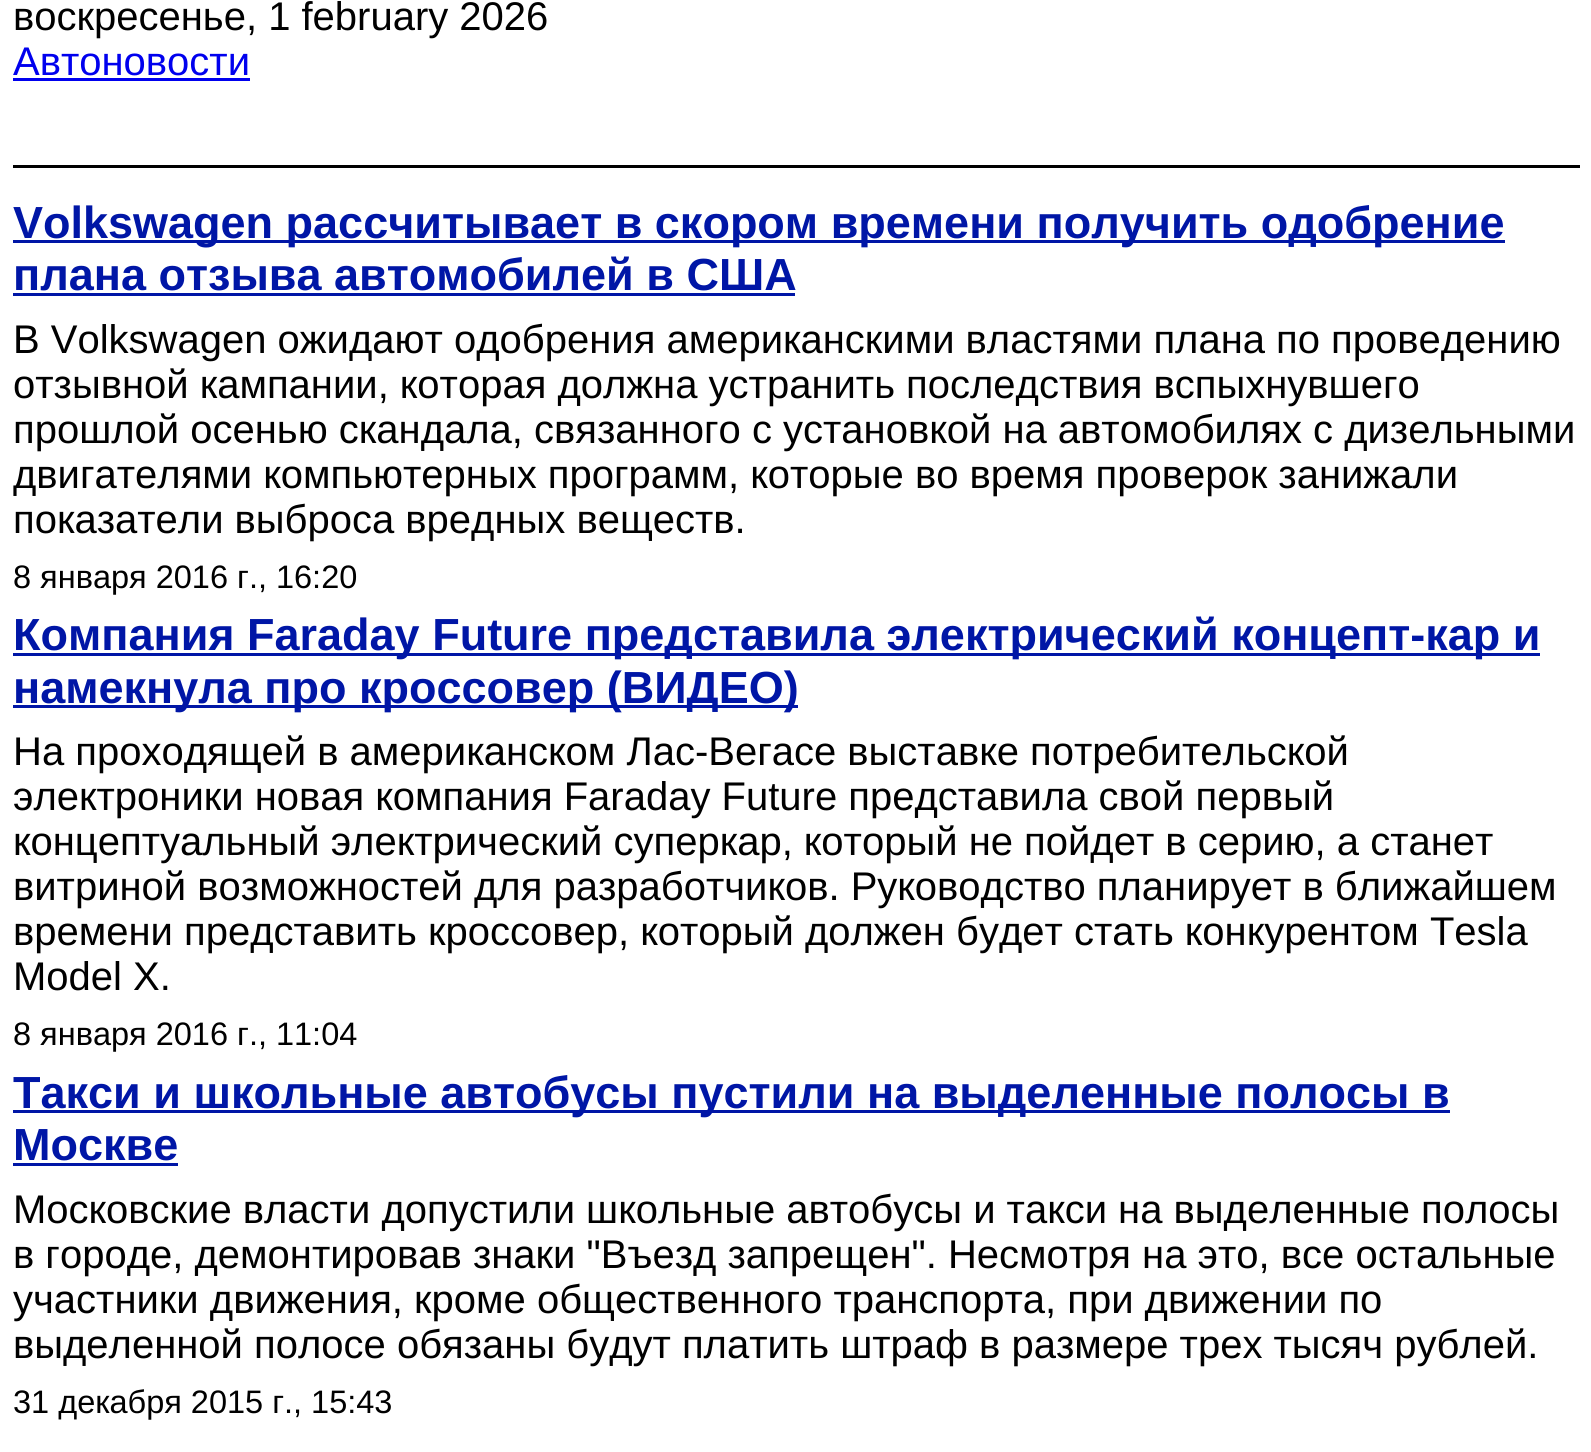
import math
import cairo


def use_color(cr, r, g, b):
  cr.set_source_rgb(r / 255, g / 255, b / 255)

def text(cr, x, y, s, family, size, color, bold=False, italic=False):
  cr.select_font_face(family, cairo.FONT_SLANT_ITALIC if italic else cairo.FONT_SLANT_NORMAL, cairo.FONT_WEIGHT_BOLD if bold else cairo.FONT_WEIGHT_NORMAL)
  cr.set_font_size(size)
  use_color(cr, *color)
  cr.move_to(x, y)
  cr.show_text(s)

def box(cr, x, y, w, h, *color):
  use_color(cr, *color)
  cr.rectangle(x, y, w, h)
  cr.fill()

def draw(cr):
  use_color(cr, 255, 255, 255)
  cr.paint()
  box(cr, 13, 165, 1567, 3, 0, 0, 0)
  box(cr, 13, 78, 237, 3, 0, 0, 238)
  box(cr, 13, 240, 1492, 3, 0, 22, 166)
  box(cr, 13, 293, 782, 3, 0, 22, 166)
  box(cr, 13, 653, 1527, 3, 0, 22, 166)
  box(cr, 13, 705, 785, 3, 0, 22, 166)
  box(cr, 13, 1110, 1437, 3, 0, 22, 166)
  box(cr, 13, 1163, 165, 3, 0, 22, 166)
  text(cr, 13, 30, "воскресенье, 1 february 2026", "Liberation Sans", 40, (0, 0, 0))
  text(cr, 13, 75, "Автоновости", "Liberation Sans", 40, (0, 0, 238))
  text(cr, 13, 238, "Volkswagen рассчитывает в скором времени получить одобрение", "Liberation Sans", 45, (0, 22, 166), bold=True)
  text(cr, 13, 290, "плана отзыва автомобилей в США", "Liberation Sans", 45, (0, 22, 166), bold=True)
  text(cr, 13, 353, "В Volkswagen ожидают одобрения американскими властями плана по проведению", "Liberation Sans", 40, (0, 0, 0))
  text(cr, 13, 398, "отзывной кампании, которая должна устранить последствия вспыхнувшего", "Liberation Sans", 40, (0, 0, 0))
  text(cr, 13, 443, "прошлой осенью скандала, связанного с установкой на автомобилях с дизельными", "Liberation Sans", 40, (0, 0, 0))
  text(cr, 13, 488, "двигателями компьютерных программ, которые во время проверок занижали", "Liberation Sans", 40, (0, 0, 0))
  text(cr, 13, 533, "показатели выброса вредных веществ.", "Liberation Sans", 40, (0, 0, 0))
  text(cr, 13, 588, "8 января 2016 г., 16:20", "Liberation Sans", 32.5, (0, 0, 0))
  text(cr, 13, 650, "Компания Faraday Future представила электрический концепт-кар и", "Liberation Sans", 45, (0, 22, 166), bold=True)
  text(cr, 13, 703, "намекнула про кроссовер (ВИДЕО)", "Liberation Sans", 45, (0, 22, 166), bold=True)
  text(cr, 13, 765, "На проходящей в американском Лас-Вегасе выставке потребительской", "Liberation Sans", 40, (0, 0, 0))
  text(cr, 13, 810, "электроники новая компания Faraday Future представила свой первый", "Liberation Sans", 40, (0, 0, 0))
  text(cr, 13, 855, "концептуальный электрический суперкар, который не пойдет в серию, а станет", "Liberation Sans", 40, (0, 0, 0))
  text(cr, 13, 900, "витриной возможностей для разработчиков. Руководство планирует в ближайшем", "Liberation Sans", 40, (0, 0, 0))
  text(cr, 13, 945, "времени представить кроссовер, который должен будет стать конкурентом Tesla", "Liberation Sans", 40, (0, 0, 0))
  text(cr, 13, 990, "Model X.", "Liberation Sans", 40, (0, 0, 0))
  text(cr, 13, 1045, "8 января 2016 г., 11:04", "Liberation Sans", 32.5, (0, 0, 0))
  text(cr, 13, 1108, "Такси и школьные автобусы пустили на выделенные полосы в", "Liberation Sans", 45, (0, 22, 166), bold=True)
  text(cr, 13, 1160, "Москве", "Liberation Sans", 45, (0, 22, 166), bold=True)
  text(cr, 13, 1223, "Московские власти допустили школьные автобусы и такси на выделенные полосы", "Liberation Sans", 40, (0, 0, 0))
  text(cr, 13, 1268, "в городе, демонтировав знаки \"Въезд запрещен\". Несмотря на это, все остальные", "Liberation Sans", 40, (0, 0, 0))
  text(cr, 13, 1313, "участники движения, кроме общественного транспорта, при движении по", "Liberation Sans", 40, (0, 0, 0))
  text(cr, 13, 1358, "выделенной полосе обязаны будут платить штраф в размере трех тысяч рублей.", "Liberation Sans", 40, (0, 0, 0))
  text(cr, 13, 1413, "31 декабря 2015 г., 15:43", "Liberation Sans", 32.5, (0, 0, 0))


surface = cairo.ImageSurface(cairo.FORMAT_RGB24, 1591, 1452)
cr = cairo.Context(surface)
options = cairo.FontOptions()
options.set_hint_metrics(cairo.HINT_METRICS_OFF)
options.set_hint_style(cairo.HINT_STYLE_NONE)
cr.set_font_options(options)
cr.set_miter_limit(4)
draw(cr)
surface.write_to_png("out.png")
